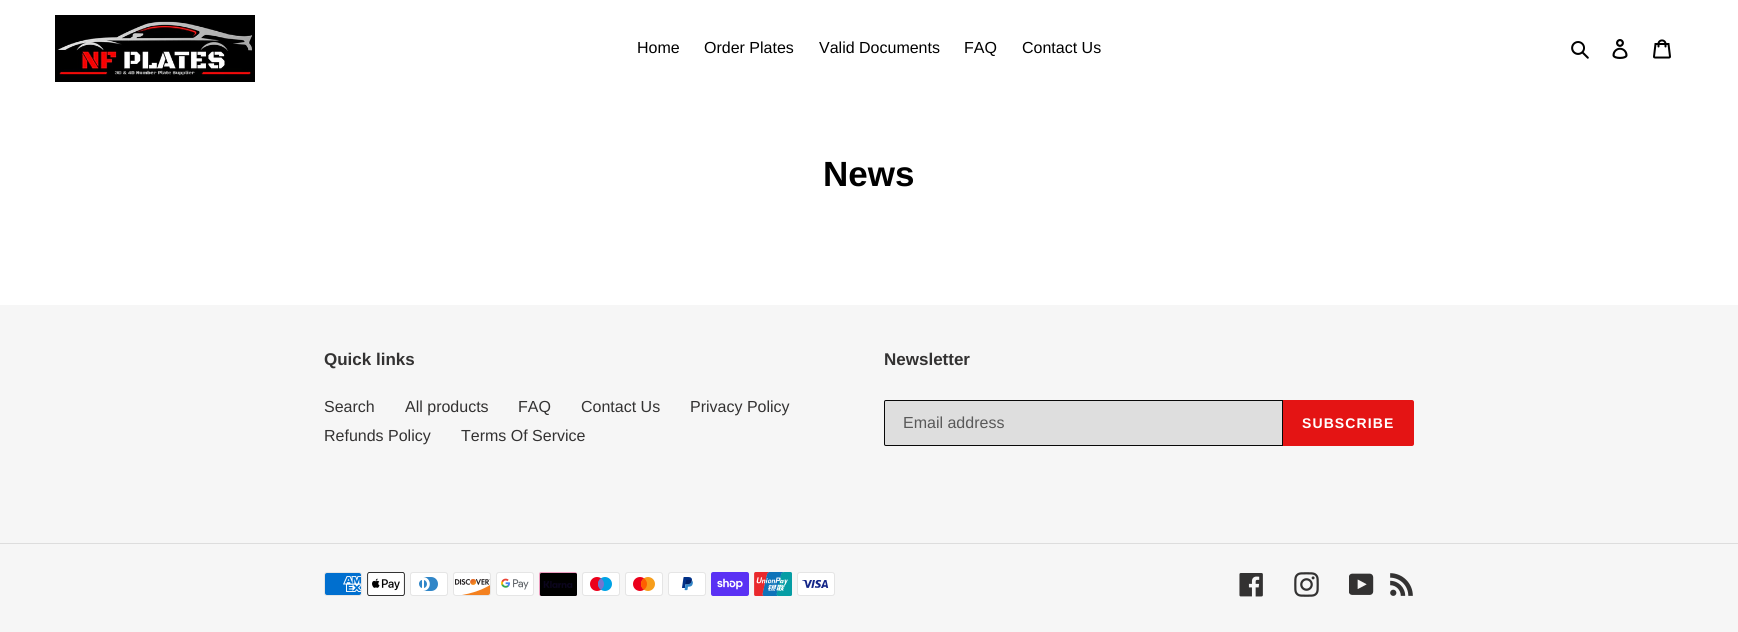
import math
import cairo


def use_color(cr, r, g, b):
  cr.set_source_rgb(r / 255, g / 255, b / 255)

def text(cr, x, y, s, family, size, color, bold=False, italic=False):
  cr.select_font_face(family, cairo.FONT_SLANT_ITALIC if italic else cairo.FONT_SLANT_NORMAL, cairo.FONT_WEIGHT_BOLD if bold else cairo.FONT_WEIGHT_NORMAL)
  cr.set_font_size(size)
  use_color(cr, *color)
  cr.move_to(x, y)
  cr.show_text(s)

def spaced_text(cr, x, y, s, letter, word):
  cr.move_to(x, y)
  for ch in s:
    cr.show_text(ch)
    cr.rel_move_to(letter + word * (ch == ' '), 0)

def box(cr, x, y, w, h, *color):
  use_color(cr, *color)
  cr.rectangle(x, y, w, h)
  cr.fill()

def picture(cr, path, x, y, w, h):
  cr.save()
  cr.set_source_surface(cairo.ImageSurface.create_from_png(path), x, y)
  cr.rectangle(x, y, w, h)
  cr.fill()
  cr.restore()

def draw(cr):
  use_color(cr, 255, 255, 255)
  cr.paint()
  picture(cr, "img_01.png", 55, 15, 200, 67)
  picture(cr, "img_02.png", 1571, 41, 18, 18)
  picture(cr, "img_03.png", 1612, 39, 16, 20)
  picture(cr, "img_04.png", 1653, 39, 18, 20)
  box(cr, 0, 305, 1738, 327, 246, 246, 246)
  use_color(cr, 222, 222, 222)
  cr.new_path()
  cr.move_to(886, 400.5)
  cr.line_to(1282.5, 400.5)
  cr.line_to(1282.5, 445.5)
  cr.line_to(886, 445.5)
  cr.curve_to(885, 445.5, 884.5, 445, 884.5, 444)
  cr.line_to(884.5, 402)
  cr.curve_to(884.5, 401, 885, 400.5, 886, 400.5)
  cr.close_path()
  cr.fill_preserve()
  use_color(cr, 8, 8, 8)
  cr.set_line_width(1)
  cr.stroke()
  use_color(cr, 228, 20, 20)
  cr.new_path()
  cr.move_to(1283, 400)
  cr.line_to(1412, 400)
  cr.curve_to(1413, 400, 1414, 401, 1414, 402)
  cr.line_to(1414, 444)
  cr.curve_to(1414, 445, 1413, 446, 1412, 446)
  cr.line_to(1283, 446)
  cr.close_path()
  cr.fill()
  box(cr, 0, 543, 1738, 1, 221, 221, 221)
  picture(cr, "img_05.png", 324, 572, 38, 24)
  picture(cr, "img_06.png", 367, 572, 38, 24)
  picture(cr, "img_07.png", 410, 572, 38, 24)
  picture(cr, "img_08.png", 453, 572, 38, 24)
  picture(cr, "img_09.png", 496, 572, 38, 24)
  picture(cr, "img_10.png", 539, 572, 38, 24)
  picture(cr, "img_11.png", 582, 572, 38, 24)
  picture(cr, "img_12.png", 625, 572, 38, 24)
  picture(cr, "img_13.png", 668, 572, 38, 24)
  picture(cr, "img_14.png", 711, 572, 38, 24)
  picture(cr, "img_15.png", 754, 572, 38, 24)
  picture(cr, "img_16.png", 797, 572, 38, 24)
  picture(cr, "img_17.png", 1239, 573, 24, 24)
  picture(cr, "img_18.png", 1294, 572, 25, 25)
  picture(cr, "img_19.png", 1349, 573, 25, 22)
  picture(cr, "img_20.png", 1390, 573, 23, 23)
  text(cr, 637, 53, "Home", "Liberation Sans", 16, (0, 0, 0))
  text(cr, 704, 53, "Order Plates", "Liberation Sans", 16, (0, 0, 0))
  text(cr, 819, 53, "Valid Documents", "Liberation Sans", 16, (0, 0, 0))
  text(cr, 964, 53, "FAQ", "Liberation Sans", 16, (0, 0, 0))
  text(cr, 1022, 53, "Contact Us", "Liberation Sans", 16, (0, 0, 0))
  text(cr, 823, 186, "News", "Liberation Sans", 35, (0, 0, 0), bold=True)
  text(cr, 324, 365, "Quick links", "Liberation Sans", 17, (51, 50, 50), bold=True)
  text(cr, 324, 412, "Search", "Liberation Sans", 16, (51, 50, 50))
  text(cr, 405, 412, "All products", "Liberation Sans", 16, (51, 50, 50))
  text(cr, 518, 412, "FAQ", "Liberation Sans", 16, (51, 50, 50))
  text(cr, 581, 412, "Contact Us", "Liberation Sans", 16, (51, 50, 50))
  text(cr, 690, 412, "Privacy Policy", "Liberation Sans", 16, (51, 50, 50))
  text(cr, 324, 441, "Refunds Policy", "Liberation Sans", 16, (51, 50, 50))
  text(cr, 461, 441, "Terms Of Service", "Liberation Sans", 16, (51, 50, 50))
  text(cr, 884, 365, "Newsletter", "Liberation Sans", 17, (51, 50, 50), bold=True)
  text(cr, 903, 428, "Email address", "Liberation Sans", 16, (89, 89, 89))
  cr.select_font_face("Liberation Sans", cairo.FONT_SLANT_NORMAL, cairo.FONT_WEIGHT_BOLD)
  cr.set_font_size(14)
  use_color(cr, 255, 255, 255)
  spaced_text(cr, 1302, 428, "SUBSCRIBE", 1.1, 0)


surface = cairo.ImageSurface(cairo.FORMAT_RGB24, 1738, 632)
cr = cairo.Context(surface)
options = cairo.FontOptions()
options.set_hint_metrics(cairo.HINT_METRICS_OFF)
options.set_hint_style(cairo.HINT_STYLE_NONE)
cr.set_font_options(options)
cr.set_miter_limit(4)
draw(cr)
surface.write_to_png("out.png")
